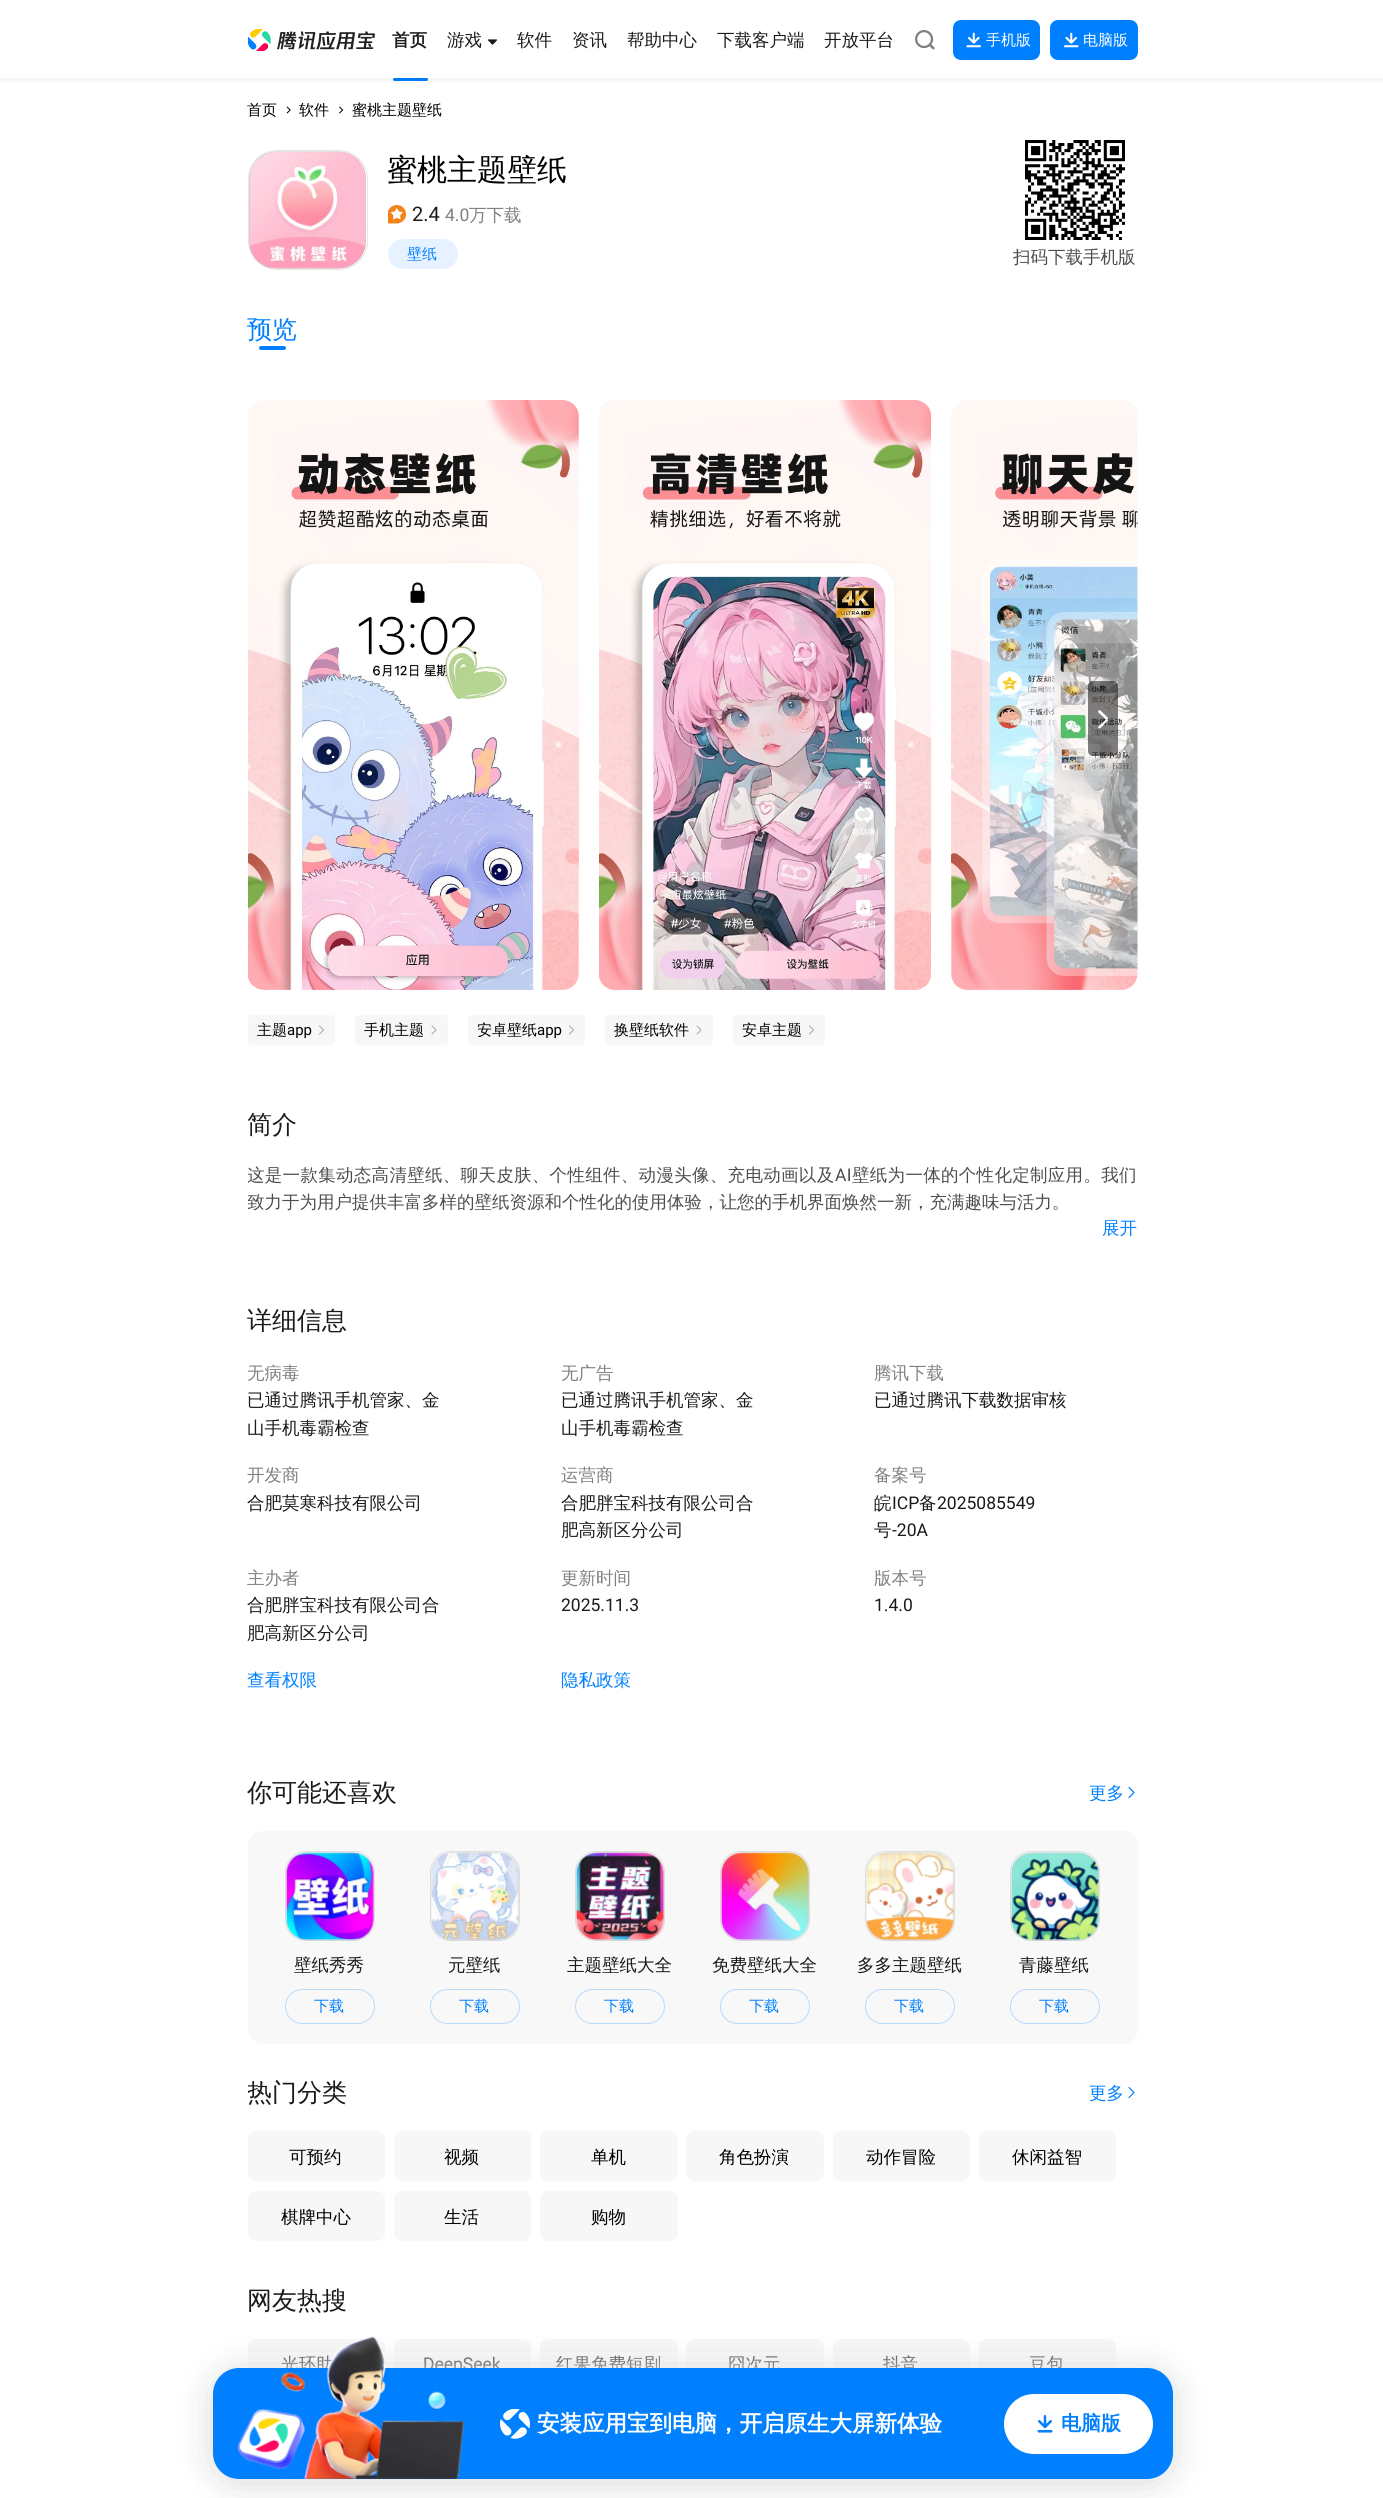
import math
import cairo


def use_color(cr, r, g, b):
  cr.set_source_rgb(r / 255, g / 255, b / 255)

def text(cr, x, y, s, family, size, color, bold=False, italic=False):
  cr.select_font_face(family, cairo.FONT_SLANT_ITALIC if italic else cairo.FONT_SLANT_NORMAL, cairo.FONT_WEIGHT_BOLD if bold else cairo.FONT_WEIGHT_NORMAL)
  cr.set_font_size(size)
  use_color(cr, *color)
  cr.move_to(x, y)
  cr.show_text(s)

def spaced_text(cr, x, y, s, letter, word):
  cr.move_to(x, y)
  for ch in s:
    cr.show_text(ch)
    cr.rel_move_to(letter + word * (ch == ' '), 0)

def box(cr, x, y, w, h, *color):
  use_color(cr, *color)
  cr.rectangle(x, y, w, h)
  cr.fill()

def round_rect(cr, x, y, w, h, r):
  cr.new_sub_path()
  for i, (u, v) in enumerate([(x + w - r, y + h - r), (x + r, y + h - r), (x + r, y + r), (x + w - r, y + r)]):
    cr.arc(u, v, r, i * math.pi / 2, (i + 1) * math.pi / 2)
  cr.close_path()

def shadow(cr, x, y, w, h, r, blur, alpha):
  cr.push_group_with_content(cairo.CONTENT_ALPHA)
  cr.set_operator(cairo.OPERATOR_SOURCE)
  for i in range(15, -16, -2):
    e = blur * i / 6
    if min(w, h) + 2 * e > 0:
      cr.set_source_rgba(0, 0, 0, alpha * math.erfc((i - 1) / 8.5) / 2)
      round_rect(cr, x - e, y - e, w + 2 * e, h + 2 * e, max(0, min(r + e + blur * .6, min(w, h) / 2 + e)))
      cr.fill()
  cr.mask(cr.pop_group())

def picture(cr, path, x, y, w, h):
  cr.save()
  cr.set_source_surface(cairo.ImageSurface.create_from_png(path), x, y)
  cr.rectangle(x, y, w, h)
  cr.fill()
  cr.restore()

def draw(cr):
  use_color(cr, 255, 255, 255)
  cr.paint()
  picture(cr, "img_01.png", 248, 29, 127, 22)
  use_color(cr, 0, 128, 255)
  round_rect(cr, 393, 78, 35, 3, 1.5)
  cr.fill()
  picture(cr, "img_02.png", 488, 39, 9, 6)
  picture(cr, "img_03.png", 915, 30, 20, 20)
  round_rect(cr, 953, 20, 87, 40, 8)
  cr.fill()
  picture(cr, "img_04.png", 966, 32, 15, 16)
  round_rect(cr, 1050, 20, 88, 40, 8)
  cr.fill()
  picture(cr, "img_05.png", 1064, 32, 15, 16)
  use_color(cr, 0, 0, 0)
  shadow(cr, 0, 76, 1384, 5, 0, 2, 0.05)
  box(cr, 0, 74, 1383, 4, 255, 255, 255)
  picture(cr, "img_06.png", 286, 106, 5, 8)
  picture(cr, "img_07.png", 339, 106, 5, 8)
  round_rect(cr, 248.5, 150.5, 119, 119, 28.5)
  use_color(cr, 230, 230, 230)
  cr.set_line_width(1)
  cr.stroke()
  picture(cr, "img_08.png", 249, 151, 117, 118)
  picture(cr, "img_09.png", 388, 205, 19, 19)
  use_color(cr, 230, 242, 255)
  round_rect(cr, 388, 239, 70, 30, 15)
  cr.fill()
  picture(cr, "img_10.png", 1025, 140, 100, 100)
  use_color(cr, 0, 128, 255)
  round_rect(cr, 259, 346, 27, 4, 2)
  cr.fill()
  picture(cr, "img_11.png", 248, 400, 331, 590)
  picture(cr, "img_12.png", 599, 400, 333, 590)
  picture(cr, "img_13.png", 951, 400, 187, 590)
  cr.set_source_rgba(0, 0, 0, 0.5)
  round_rect(cr, 1088, 681, 30, 75, 5)
  cr.fill()
  use_color(cr, 255, 255, 255)
  cr.new_path()
  cr.move_to(1100.5, 710.5)
  cr.line_to(1107.5, 717.5)
  cr.curve_to(1108, 718, 1108, 719, 1107.5, 719.5)
  cr.curve_to(1107, 720, 1106.5, 720, 1106, 719.5)
  cr.line_to(1098.5, 712.5)
  cr.curve_to(1098, 712, 1098, 711, 1098.5, 710.5)
  cr.curve_to(1099, 710, 1100, 710, 1100.5, 710.5)
  cr.close_path()
  cr.fill()
  cr.new_path()
  cr.move_to(1107.5, 721)
  cr.line_to(1100.5, 728)
  cr.curve_to(1100, 728.5, 1099, 728.5, 1098.5, 728)
  cr.curve_to(1098, 727.5, 1098, 727, 1098.5, 726.5)
  cr.line_to(1106, 719.5)
  cr.curve_to(1106.5, 719, 1107, 719, 1107.5, 719.5)
  cr.curve_to(1108, 720, 1108, 720.5, 1107.5, 721)
  cr.close_path()
  cr.fill()
  use_color(cr, 247, 247, 247)
  round_rect(cr, 248, 1015, 87, 30, 4)
  cr.fill()
  cr.new_path()
  cr.move_to(319.5, 1026)
  cr.line_to(323.5, 1030)
  cr.line_to(319.5, 1034)
  use_color(cr, 166, 166, 166)
  cr.set_line_cap(cairo.LINE_CAP_ROUND)
  cr.set_line_join(cairo.LINE_JOIN_ROUND)
  cr.stroke()
  use_color(cr, 247, 247, 247)
  round_rect(cr, 355, 1015, 93, 30, 4)
  cr.fill()
  cr.new_path()
  cr.move_to(432, 1026)
  cr.line_to(436, 1030)
  cr.line_to(432, 1034)
  use_color(cr, 166, 166, 166)
  cr.stroke()
  use_color(cr, 247, 247, 247)
  round_rect(cr, 468, 1015, 117, 30, 4)
  cr.fill()
  cr.new_path()
  cr.move_to(569.5, 1026)
  cr.line_to(573.5, 1030)
  cr.line_to(569.5, 1034)
  use_color(cr, 166, 166, 166)
  cr.stroke()
  use_color(cr, 247, 247, 247)
  round_rect(cr, 605, 1015, 108, 30, 4)
  cr.fill()
  cr.new_path()
  cr.move_to(697, 1026)
  cr.line_to(701, 1030)
  cr.line_to(697, 1034)
  use_color(cr, 166, 166, 166)
  cr.stroke()
  use_color(cr, 247, 247, 247)
  round_rect(cr, 733, 1015, 92, 30, 4)
  cr.fill()
  cr.new_path()
  cr.move_to(809.5, 1026)
  cr.line_to(813.5, 1030)
  cr.line_to(809.5, 1034)
  use_color(cr, 166, 166, 166)
  cr.stroke()
  cr.new_path()
  cr.move_to(1129, 1787.5)
  cr.line_to(1134, 1792.5)
  cr.line_to(1129, 1797.5)
  use_color(cr, 0, 128, 255)
  cr.set_line_width(1.2)
  cr.stroke()
  use_color(cr, 248, 248, 248)
  round_rect(cr, 248, 1831, 890, 213, 15)
  cr.fill()
  round_rect(cr, 285.5, 1851.5, 89, 89, 20.5)
  use_color(cr, 223, 223, 223)
  cr.set_line_width(1)
  cr.set_line_cap(cairo.LINE_CAP_BUTT)
  cr.set_line_join(cairo.LINE_JOIN_MITER)
  cr.stroke()
  picture(cr, "img_14.png", 285, 1852, 89, 89)
  round_rect(cr, 285.5, 1989.5, 89, 34, 17)
  use_color(cr, 186, 218, 250)
  cr.stroke()
  round_rect(cr, 430.5, 1851.5, 89, 89, 20.5)
  use_color(cr, 223, 223, 223)
  cr.stroke()
  picture(cr, "img_15.png", 431, 1852, 88, 89)
  round_rect(cr, 430.5, 1989.5, 89, 34, 17)
  use_color(cr, 186, 218, 250)
  cr.stroke()
  round_rect(cr, 575.5, 1851.5, 89, 89, 20.5)
  use_color(cr, 223, 223, 223)
  cr.stroke()
  picture(cr, "img_16.png", 575, 1852, 89, 89)
  round_rect(cr, 575.5, 1989.5, 89, 34, 17)
  use_color(cr, 186, 218, 250)
  cr.stroke()
  round_rect(cr, 720.5, 1851.5, 89, 89, 20.5)
  use_color(cr, 223, 223, 223)
  cr.stroke()
  picture(cr, "img_17.png", 720, 1852, 89, 89)
  round_rect(cr, 720.5, 1989.5, 89, 34, 17)
  use_color(cr, 186, 218, 250)
  cr.stroke()
  round_rect(cr, 865.5, 1851.5, 89, 89, 20.5)
  use_color(cr, 223, 223, 223)
  cr.stroke()
  picture(cr, "img_18.png", 866, 1852, 88, 89)
  round_rect(cr, 865.5, 1989.5, 89, 34, 17)
  use_color(cr, 186, 218, 250)
  cr.stroke()
  round_rect(cr, 1010.5, 1851.5, 89, 89, 20.5)
  use_color(cr, 223, 223, 223)
  cr.stroke()
  picture(cr, "img_19.png", 1010, 1852, 89, 89)
  round_rect(cr, 1010.5, 1989.5, 89, 34, 17)
  use_color(cr, 186, 218, 250)
  cr.stroke()
  cr.new_path()
  cr.move_to(1129, 2087.5)
  cr.line_to(1134, 2092.5)
  cr.line_to(1129, 2097.5)
  use_color(cr, 0, 128, 255)
  cr.set_line_width(1.2)
  cr.set_line_cap(cairo.LINE_CAP_ROUND)
  cr.set_line_join(cairo.LINE_JOIN_ROUND)
  cr.stroke()
  use_color(cr, 247, 247, 247)
  round_rect(cr, 248, 2131, 137, 50, 8)
  cr.fill()
  round_rect(cr, 394, 2131, 137, 50, 8)
  cr.fill()
  round_rect(cr, 540, 2131, 138, 50, 8)
  cr.fill()
  round_rect(cr, 686, 2131, 138, 50, 8)
  cr.fill()
  round_rect(cr, 833, 2131, 137, 50, 8)
  cr.fill()
  round_rect(cr, 979, 2131, 137, 50, 8)
  cr.fill()
  round_rect(cr, 248, 2191, 137, 50, 8)
  cr.fill()
  round_rect(cr, 394, 2191, 137, 50, 8)
  cr.fill()
  round_rect(cr, 540, 2191, 138, 50, 8)
  cr.fill()
  round_rect(cr, 248, 2339, 137, 50, 8)
  cr.fill()
  round_rect(cr, 394, 2339, 137, 50, 8)
  cr.fill()
  round_rect(cr, 540, 2339, 138, 50, 8)
  cr.fill()
  round_rect(cr, 686, 2339, 138, 50, 8)
  cr.fill()
  round_rect(cr, 833, 2339, 137, 50, 8)
  cr.fill()
  round_rect(cr, 979, 2339, 137, 50, 8)
  cr.fill()
  text(cr, 392, 46, "首页", "WenQuanYi Zen Hei", 17.5, (26, 26, 26), bold=True)
  text(cr, 447, 46, "游戏", "WenQuanYi Zen Hei Medium", 17.5, (26, 26, 26))
  text(cr, 517, 46, "软件", "WenQuanYi Zen Hei Medium", 17.5, (26, 26, 26))
  text(cr, 572, 46, "资讯", "WenQuanYi Zen Hei Medium", 17.5, (26, 26, 26))
  text(cr, 627, 46, "帮助中心", "WenQuanYi Zen Hei Medium", 17.5, (26, 26, 26))
  text(cr, 717, 46, "下载客户端", "WenQuanYi Zen Hei Medium", 17.5, (26, 26, 26))
  text(cr, 824, 46, "开放平台", "WenQuanYi Zen Hei Medium", 17.5, (26, 26, 26))
  text(cr, 986, 45, "手机版", "WenQuanYi Zen Hei Medium", 15, (255, 255, 255))
  text(cr, 1083, 45, "电脑版", "WenQuanYi Zen Hei Medium", 15, (255, 255, 255))
  text(cr, 247, 115, "首页", "WenQuanYi Zen Hei Medium", 15, (0, 0, 0))
  text(cr, 299, 115, "软件", "WenQuanYi Zen Hei Medium", 15, (0, 0, 0))
  text(cr, 352, 115, "蜜桃主题壁纸", "WenQuanYi Zen Hei Medium", 15, (0, 0, 0))
  text(cr, 387, 180, "蜜桃主题壁纸", "WenQuanYi Zen Hei Medium", 30, (0, 0, 0))
  text(cr, 412, 221, "2.4", "Roboto", 20, (26, 26, 26))
  text(cr, 445, 221, "4.0", "Roboto", 17.5, (128, 128, 128))
  text(cr, 469, 221, "万下载", "WenQuanYi Zen Hei Medium", 17.5, (128, 128, 128))
  text(cr, 407, 259, "壁纸", "WenQuanYi Zen Hei Medium", 15, (0, 128, 255))
  text(cr, 1013, 263, "扫码下载手机版", "WenQuanYi Zen Hei Medium", 17.5, (77, 77, 77))
  text(cr, 247, 338, "预览", "WenQuanYi Zen Hei Medium", 25, (0, 128, 255))
  text(cr, 257, 1035, "主题", "WenQuanYi Zen Hei Medium", 15, (0, 0, 0))
  text(cr, 287, 1035, "app", "Roboto", 15, (0, 0, 0))
  text(cr, 364, 1035, "手机主题", "WenQuanYi Zen Hei Medium", 15, (0, 0, 0))
  cr.save()
  cr.rectangle(478, 1020, 85, 20)
  cr.clip()
  text(cr, 477, 1035, "安卓壁纸", "WenQuanYi Zen Hei Medium", 15, (0, 0, 0))
  cr.restore()
  text(cr, 537, 1035, "app", "Roboto", 15, (0, 0, 0))
  text(cr, 614, 1035, "换壁纸软件", "WenQuanYi Zen Hei Medium", 15, (0, 0, 0))
  text(cr, 742, 1035, "安卓主题", "WenQuanYi Zen Hei Medium", 15, (0, 0, 0))
  text(cr, 247, 1133, "简介", "WenQuanYi Zen Hei Medium", 25, (26, 26, 26))
  cr.save()
  cr.rectangle(248, 1163, 890, 78)
  cr.clip()
  cr.set_font_size(17.5)
  use_color(cr, 77, 77, 77)
  spaced_text(cr, 247, 1181, "这是一款集动态高清壁纸、聊天皮肤、个性组件、动漫头像、充电动画以及", 0.3, 0)
  cr.restore()
  cr.select_font_face("Roboto")
  cr.set_font_size(17.5)
  use_color(cr, 77, 77, 77)
  spaced_text(cr, 835, 1181, "AI", 0.3, 0)
  cr.select_font_face("WenQuanYi Zen Hei Medium")
  spaced_text(cr, 852, 1181, "壁纸为一体的个性化定制应用。我们", 0.3, 0)
  cr.save()
  cr.rectangle(248, 1163, 890, 78)
  cr.clip()
  text(cr, 247, 1208, "致力于为用户提供丰富多样的壁纸资源和个性化的使用体验，让您的手机界面焕然一新，充满趣味与活力。", "WenQuanYi Zen Hei Medium", 17.5, (77, 77, 77))
  cr.restore()
  text(cr, 1102, 1234, "展开", "WenQuanYi Zen Hei Medium", 17.5, (0, 128, 255))
  text(cr, 247, 1329, "详细信息", "WenQuanYi Zen Hei Medium", 25, (26, 26, 26))
  text(cr, 247, 1379, "无病毒", "WenQuanYi Zen Hei Medium", 17.5, (128, 128, 128))
  text(cr, 247, 1406, "已通过腾讯手机管家、金", "WenQuanYi Zen Hei Medium", 17.5, (26, 26, 26))
  text(cr, 247, 1434, "山手机毒霸检查", "WenQuanYi Zen Hei Medium", 17.5, (26, 26, 26))
  text(cr, 561, 1379, "无广告", "WenQuanYi Zen Hei Medium", 17.5, (128, 128, 128))
  text(cr, 561, 1406, "已通过腾讯手机管家、金", "WenQuanYi Zen Hei Medium", 17.5, (26, 26, 26))
  text(cr, 561, 1434, "山手机毒霸检查", "WenQuanYi Zen Hei Medium", 17.5, (26, 26, 26))
  text(cr, 874, 1379, "腾讯下载", "WenQuanYi Zen Hei Medium", 17.5, (128, 128, 128))
  text(cr, 874, 1406, "已通过腾讯下载数据审核", "WenQuanYi Zen Hei Medium", 17.5, (26, 26, 26))
  text(cr, 247, 1481, "开发商", "WenQuanYi Zen Hei Medium", 17.5, (128, 128, 128))
  text(cr, 247, 1509, "合肥莫寒科技有限公司", "WenQuanYi Zen Hei Medium", 17.5, (26, 26, 26))
  text(cr, 561, 1481, "运营商", "WenQuanYi Zen Hei Medium", 17.5, (128, 128, 128))
  text(cr, 561, 1509, "合肥胖宝科技有限公司合", "WenQuanYi Zen Hei Medium", 17.5, (26, 26, 26))
  text(cr, 561, 1536, "肥高新区分公司", "WenQuanYi Zen Hei Medium", 17.5, (26, 26, 26))
  text(cr, 874, 1481, "备案号", "WenQuanYi Zen Hei Medium", 17.5, (128, 128, 128))
  text(cr, 874, 1509, "皖", "WenQuanYi Zen Hei Medium", 17.5, (26, 26, 26))
  text(cr, 892, 1509, "ICP", "Roboto", 17.5, (26, 26, 26))
  text(cr, 919, 1509, "备", "WenQuanYi Zen Hei Medium", 17.5, (26, 26, 26))
  text(cr, 937, 1509, "2025085549", "Roboto", 17.5, (26, 26, 26))
  text(cr, 874, 1536, "号", "WenQuanYi Zen Hei Medium", 17.5, (26, 26, 26))
  text(cr, 892, 1536, "-20A", "Roboto", 17.5, (26, 26, 26))
  text(cr, 247, 1584, "主办者", "WenQuanYi Zen Hei Medium", 17.5, (128, 128, 128))
  text(cr, 247, 1611, "合肥胖宝科技有限公司合", "WenQuanYi Zen Hei Medium", 17.5, (26, 26, 26))
  text(cr, 247, 1639, "肥高新区分公司", "WenQuanYi Zen Hei Medium", 17.5, (26, 26, 26))
  text(cr, 561, 1584, "更新时间", "WenQuanYi Zen Hei Medium", 17.5, (128, 128, 128))
  text(cr, 561, 1611, "2025.11.3", "Roboto", 17.5, (26, 26, 26))
  text(cr, 874, 1584, "版本号", "WenQuanYi Zen Hei Medium", 17.5, (128, 128, 128))
  text(cr, 874, 1611, "1.4.0", "Roboto", 17.5, (26, 26, 26))
  text(cr, 247, 1686, "查看权限", "WenQuanYi Zen Hei Medium", 17.5, (0, 128, 255))
  text(cr, 561, 1686, "隐私政策", "WenQuanYi Zen Hei Medium", 17.5, (0, 128, 255))
  text(cr, 247, 1801, "你可能还喜欢", "WenQuanYi Zen Hei Medium", 25, (26, 26, 26))
  text(cr, 1089, 1799, "更多", "WenQuanYi Zen Hei Medium", 17.5, (0, 128, 255))
  text(cr, 294, 1971, "壁纸秀秀", "WenQuanYi Zen Hei Medium", 17.5, (26, 26, 26))
  text(cr, 314, 2011, "下载", "WenQuanYi Zen Hei Medium", 15, (0, 128, 255))
  text(cr, 448, 1971, "元壁纸", "WenQuanYi Zen Hei Medium", 17.5, (26, 26, 26))
  text(cr, 459, 2011, "下载", "WenQuanYi Zen Hei Medium", 15, (0, 128, 255))
  text(cr, 567, 1971, "主题壁纸大全", "WenQuanYi Zen Hei Medium", 17.5, (26, 26, 26))
  text(cr, 604, 2011, "下载", "WenQuanYi Zen Hei Medium", 15, (0, 128, 255))
  text(cr, 712, 1971, "免费壁纸大全", "WenQuanYi Zen Hei Medium", 17.5, (26, 26, 26))
  text(cr, 749, 2011, "下载", "WenQuanYi Zen Hei Medium", 15, (0, 128, 255))
  text(cr, 857, 1971, "多多主题壁纸", "WenQuanYi Zen Hei Medium", 17.5, (26, 26, 26))
  text(cr, 894, 2011, "下载", "WenQuanYi Zen Hei Medium", 15, (0, 128, 255))
  text(cr, 1019, 1971, "青藤壁纸", "WenQuanYi Zen Hei Medium", 17.5, (26, 26, 26))
  text(cr, 1039, 2011, "下载", "WenQuanYi Zen Hei Medium", 15, (0, 128, 255))
  cr.save()
  cr.rectangle(248, 2074, 822, 37)
  cr.clip()
  text(cr, 247, 2101, "热门分类", "WenQuanYi Zen Hei Medium", 25, (26, 26, 26))
  cr.restore()
  text(cr, 1089, 2099, "更多", "WenQuanYi Zen Hei Medium", 17.5, (0, 128, 255))
  text(cr, 289, 2163, "可预约", "WenQuanYi Zen Hei Medium", 17.5, (0, 0, 0))
  text(cr, 444, 2163, "视频", "WenQuanYi Zen Hei Medium", 17.5, (0, 0, 0))
  text(cr, 591, 2163, "单机", "WenQuanYi Zen Hei Medium", 17.5, (0, 0, 0))
  text(cr, 719, 2163, "角色扮演", "WenQuanYi Zen Hei Medium", 17.5, (0, 0, 0))
  text(cr, 866, 2163, "动作冒险", "WenQuanYi Zen Hei Medium", 17.5, (0, 0, 0))
  text(cr, 1012, 2163, "休闲益智", "WenQuanYi Zen Hei Medium", 17.5, (0, 0, 0))
  text(cr, 281, 2223, "棋牌中心", "WenQuanYi Zen Hei Medium", 17.5, (0, 0, 0))
  text(cr, 444, 2223, "生活", "WenQuanYi Zen Hei Medium", 17.5, (0, 0, 0))
  text(cr, 591, 2223, "购物", "WenQuanYi Zen Hei Medium", 17.5, (0, 0, 0))
  text(cr, 247, 2309, "网友热搜", "WenQuanYi Zen Hei Medium", 25, (26, 26, 26))
  text(cr, 281, 2370, "光环助", "WenQuanYi Zen Hei Medium", 17.5, (0, 0, 0))
  text(cr, 423, 2370, "DeepSeek", "Roboto", 17.5, (0, 0, 0))
  text(cr, 556, 2370, "红果免费短剧", "WenQuanYi Zen Hei Medium", 17.5, (0, 0, 0))
  text(cr, 728, 2370, "囧次元", "WenQuanYi Zen Hei Medium", 17.5, (0, 0, 0))
  text(cr, 883, 2370, "抖音", "WenQuanYi Zen Hei Medium", 17.5, (0, 0, 0))
  text(cr, 1029, 2370, "豆包", "WenQuanYi Zen Hei Medium", 17.5, (0, 0, 0))
  gradient = cairo.LinearGradient(693, 2333, 693, 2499)
  gradient.add_color_stop_rgba(0, 1, 1, 1, 0)
  gradient.add_color_stop_rgba(0.34, 1, 1, 1, 1)
  cr.set_source(gradient)
  cr.rectangle(248, 2351, 868, 38)
  cr.fill()
  use_color(cr, 0, 0, 0)
  shadow(cr, 213, 2371, 960, 112, 26, 19, 0.15)
  use_color(cr, 0, 128, 255)
  round_rect(cr, 213, 2368, 960, 111, 26)
  cr.fill()
  picture(cr, "img_20.png", 237, 2336, 228, 143)
  picture(cr, "img_21.png", 500, 2409, 30, 30)
  text(cr, 537, 2431, "安装应用宝到电脑，开启原生大屏新体验", "WenQuanYi Zen Hei", 22.5, (255, 255, 255), bold=True)
  round_rect(cr, 1004, 2394, 149, 60, 30)
  cr.fill()
  picture(cr, "img_22.png", 1037, 2415, 16, 18)
  text(cr, 1061, 2430, "电脑版", "WenQuanYi Zen Hei", 20, (0, 128, 255), bold=True)


surface = cairo.ImageSurface(cairo.FORMAT_RGB24, 1383, 2498)
cr = cairo.Context(surface)
options = cairo.FontOptions()
options.set_hint_metrics(cairo.HINT_METRICS_OFF)
options.set_hint_style(cairo.HINT_STYLE_NONE)
cr.set_font_options(options)
cr.set_miter_limit(4)
draw(cr)
surface.write_to_png("out.png")
